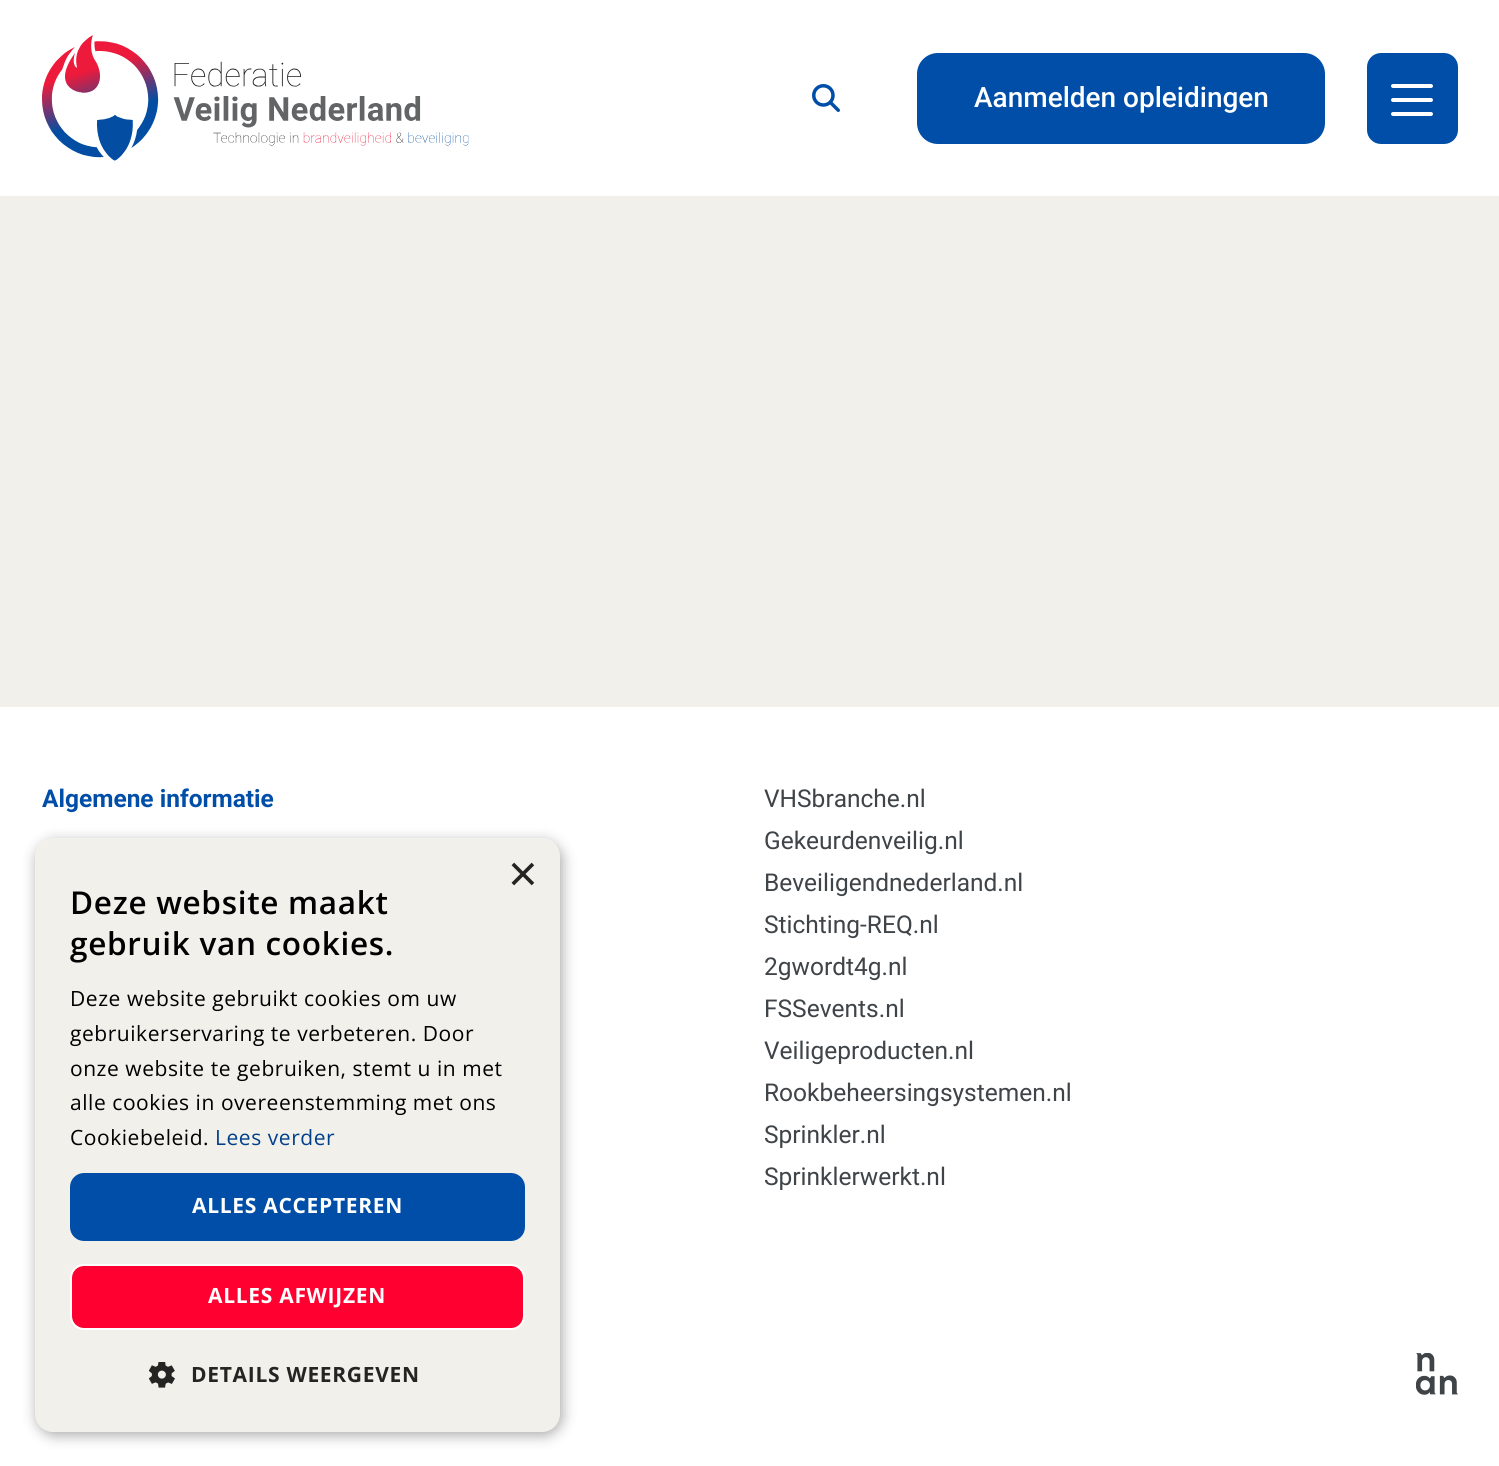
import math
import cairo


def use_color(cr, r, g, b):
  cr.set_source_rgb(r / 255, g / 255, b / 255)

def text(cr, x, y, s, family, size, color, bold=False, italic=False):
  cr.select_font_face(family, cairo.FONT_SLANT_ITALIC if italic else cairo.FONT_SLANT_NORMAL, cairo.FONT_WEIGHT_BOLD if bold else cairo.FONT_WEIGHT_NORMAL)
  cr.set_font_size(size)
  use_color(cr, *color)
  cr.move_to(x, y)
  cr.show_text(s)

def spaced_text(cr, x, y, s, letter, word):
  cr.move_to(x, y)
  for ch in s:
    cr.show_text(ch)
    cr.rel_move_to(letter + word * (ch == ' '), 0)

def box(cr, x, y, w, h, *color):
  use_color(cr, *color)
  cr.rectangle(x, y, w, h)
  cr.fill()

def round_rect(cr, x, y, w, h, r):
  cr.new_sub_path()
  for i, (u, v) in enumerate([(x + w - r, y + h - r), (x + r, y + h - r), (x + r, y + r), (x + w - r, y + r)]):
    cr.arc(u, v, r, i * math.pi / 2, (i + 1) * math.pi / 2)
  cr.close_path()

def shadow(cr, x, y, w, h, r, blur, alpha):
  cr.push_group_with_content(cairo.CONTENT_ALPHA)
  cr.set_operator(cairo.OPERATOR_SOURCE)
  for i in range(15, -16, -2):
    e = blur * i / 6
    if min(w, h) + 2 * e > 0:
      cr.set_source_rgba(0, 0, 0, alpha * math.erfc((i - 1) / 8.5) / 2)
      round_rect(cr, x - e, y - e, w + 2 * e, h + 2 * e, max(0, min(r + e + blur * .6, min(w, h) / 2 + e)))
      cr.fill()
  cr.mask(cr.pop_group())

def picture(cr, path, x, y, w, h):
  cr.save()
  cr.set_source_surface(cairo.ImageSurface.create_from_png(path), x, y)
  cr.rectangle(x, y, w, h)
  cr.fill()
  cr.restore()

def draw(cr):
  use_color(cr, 242, 240, 234)
  cr.paint()
  box(cr, 0, 0, 1499, 196, 255, 255, 255)
  picture(cr, "img_01.png", 42, 35, 427, 126)
  picture(cr, "img_02.png", 812, 84, 28, 28)
  use_color(cr, 0, 78, 168)
  round_rect(cr, 917, 53, 408, 91, 21)
  cr.fill()
  round_rect(cr, 1367, 53, 91, 91, 14)
  cr.fill()
  use_color(cr, 255, 255, 255)
  round_rect(cr, 1391, 84, 42, 4, 2)
  cr.fill()
  round_rect(cr, 1391, 98, 42, 4, 2)
  cr.fill()
  round_rect(cr, 1391, 112, 42, 4, 2)
  cr.fill()
  box(cr, 0, 707, 1499, 759, 255, 255, 255)
  picture(cr, "img_03.png", 1416, 1353, 42, 42)
  use_color(cr, 0, 0, 0)
  shadow(cr, 37, 842, 525, 593, 18, 7, 0.35)
  use_color(cr, 242, 240, 234)
  round_rect(cr, 35, 838, 525, 594, 18)
  cr.fill()
  use_color(cr, 0, 78, 168)
  round_rect(cr, 70, 1173, 455, 68, 14)
  cr.fill()
  use_color(cr, 255, 0, 49)
  round_rect(cr, 71, 1265, 453, 64, 13)
  cr.fill_preserve()
  use_color(cr, 255, 255, 255)
  cr.stroke()
  picture(cr, "img_04.png", 149, 1362, 26, 26)
  text(cr, 974, 107, "Aanmelden opleidingen", "Roboto Medium", 28, (255, 255, 255))
  text(cr, 42, 807, "Algemene informatie", "Roboto", 24.5, (0, 78, 168), bold=True)
  text(cr, 764, 807, "VHSbranche.nl", "Roboto", 24.5, (63, 68, 72))
  text(cr, 764, 849, "Gekeurdenveilig.nl", "Roboto", 24.5, (63, 68, 72))
  text(cr, 764, 891, "Beveiligendnederland.nl", "Roboto", 24.5, (63, 68, 72))
  text(cr, 764, 933, "Stichting-REQ.nl", "Roboto", 24.5, (63, 68, 72))
  text(cr, 764, 975, "2gwordt4g.nl", "Roboto", 24.5, (63, 68, 72))
  text(cr, 764, 1017, "FSSevents.nl", "Roboto", 24.5, (63, 68, 72))
  text(cr, 764, 1059, "Veiligeproducten.nl", "Roboto", 24.5, (63, 68, 72))
  text(cr, 764, 1101, "Rookbeheersingsystemen.nl", "Roboto", 24.5, (63, 68, 72))
  text(cr, 764, 1143, "Sprinkler.nl", "Roboto", 24.5, (63, 68, 72))
  text(cr, 764, 1185, "Sprinklerwerkt.nl", "Roboto", 24.5, (63, 68, 72))
  text(cr, 508, 891, "×", "Liberation Sans", 51, (36, 36, 35))
  cr.select_font_face("Open Sans SemiBold")
  cr.set_font_size(31.5)
  use_color(cr, 0, 0, 0)
  spaced_text(cr, 70, 914, "Deze website maakt", 0.7, 0)
  spaced_text(cr, 70, 955, "gebruik van cookies.", 0.7, 0)
  cr.select_font_face("Open Sans")
  cr.set_font_size(21)
  spaced_text(cr, 70, 1006, "Deze website gebruikt cookies om uw", 0.55, 0)
  spaced_text(cr, 70, 1041, "gebruikerservaring te verbeteren. Door", 0.55, 0)
  spaced_text(cr, 70, 1076, "onze website te gebruiken, stemt u in met", 0.55, 0)
  spaced_text(cr, 70, 1110, "alle cookies in overeenstemming met ons", 0.55, 0)
  spaced_text(cr, 70, 1145, "Cookiebeleid.", 0.55, 0)
  use_color(cr, 0, 64, 139)
  spaced_text(cr, 215, 1145, "Lees verder", 0.55, 0)
  cr.select_font_face("Open Sans", cairo.FONT_SLANT_NORMAL, cairo.FONT_WEIGHT_BOLD)
  use_color(cr, 255, 255, 255)
  spaced_text(cr, 192, 1213, "ALLES ACCEPTEREN", 0.7, 0)
  spaced_text(cr, 208, 1303, "ALLES AFWIJZEN", 0.7, 0)
  use_color(cr, 36, 36, 35)
  spaced_text(cr, 191, 1382, "DETAILS WEERGEVEN", 0.7, 0)


surface = cairo.ImageSurface(cairo.FORMAT_RGB24, 1499, 1466)
cr = cairo.Context(surface)
options = cairo.FontOptions()
options.set_hint_metrics(cairo.HINT_METRICS_OFF)
options.set_hint_style(cairo.HINT_STYLE_NONE)
cr.set_font_options(options)
cr.set_miter_limit(4)
draw(cr)
surface.write_to_png("out.png")
